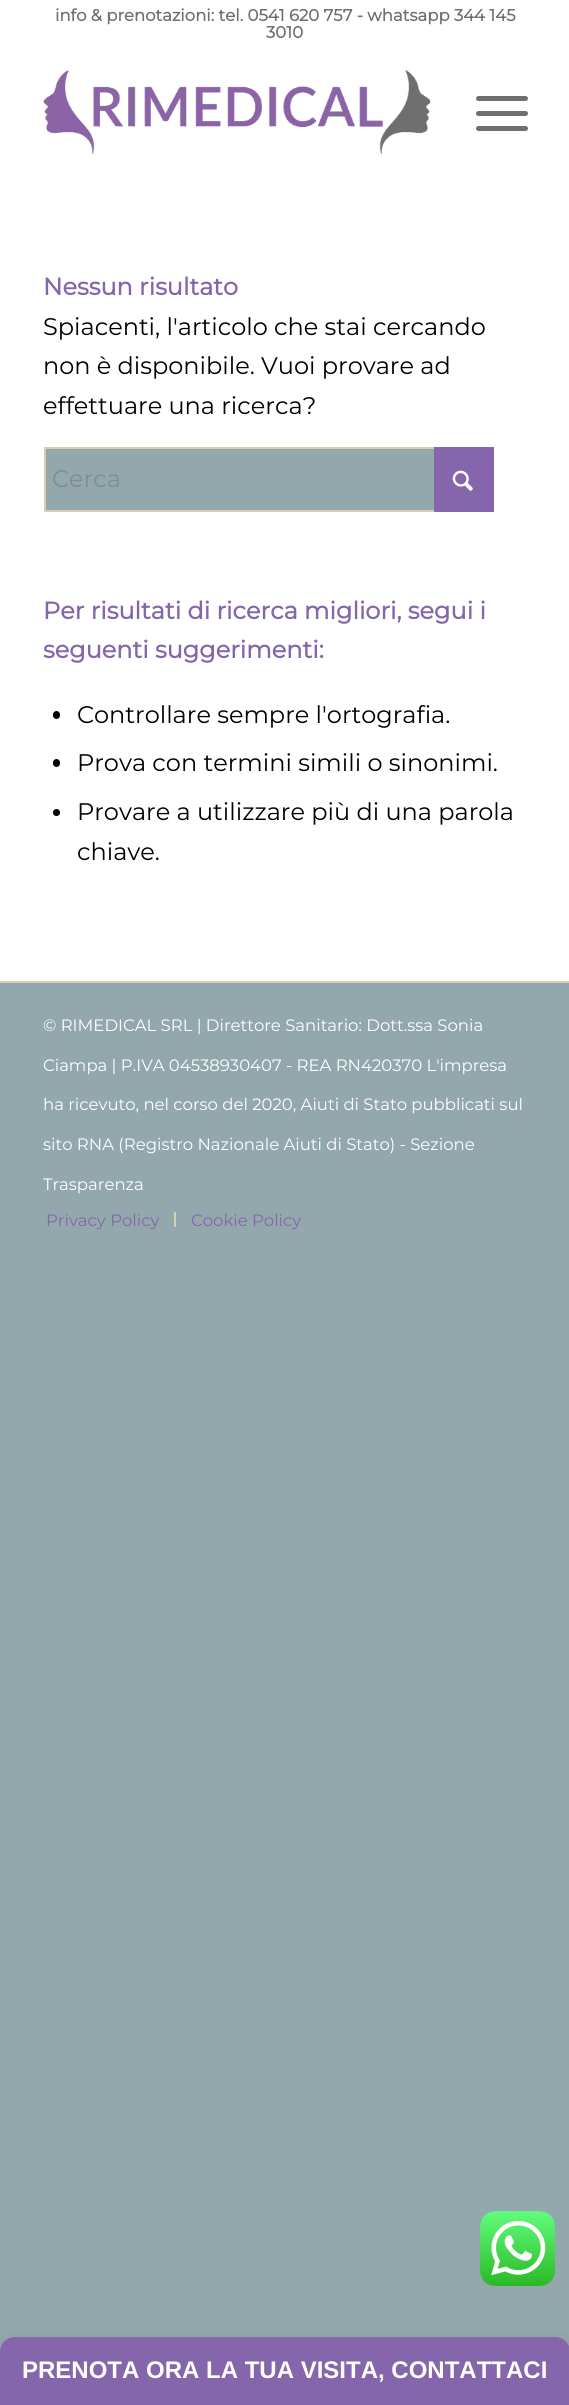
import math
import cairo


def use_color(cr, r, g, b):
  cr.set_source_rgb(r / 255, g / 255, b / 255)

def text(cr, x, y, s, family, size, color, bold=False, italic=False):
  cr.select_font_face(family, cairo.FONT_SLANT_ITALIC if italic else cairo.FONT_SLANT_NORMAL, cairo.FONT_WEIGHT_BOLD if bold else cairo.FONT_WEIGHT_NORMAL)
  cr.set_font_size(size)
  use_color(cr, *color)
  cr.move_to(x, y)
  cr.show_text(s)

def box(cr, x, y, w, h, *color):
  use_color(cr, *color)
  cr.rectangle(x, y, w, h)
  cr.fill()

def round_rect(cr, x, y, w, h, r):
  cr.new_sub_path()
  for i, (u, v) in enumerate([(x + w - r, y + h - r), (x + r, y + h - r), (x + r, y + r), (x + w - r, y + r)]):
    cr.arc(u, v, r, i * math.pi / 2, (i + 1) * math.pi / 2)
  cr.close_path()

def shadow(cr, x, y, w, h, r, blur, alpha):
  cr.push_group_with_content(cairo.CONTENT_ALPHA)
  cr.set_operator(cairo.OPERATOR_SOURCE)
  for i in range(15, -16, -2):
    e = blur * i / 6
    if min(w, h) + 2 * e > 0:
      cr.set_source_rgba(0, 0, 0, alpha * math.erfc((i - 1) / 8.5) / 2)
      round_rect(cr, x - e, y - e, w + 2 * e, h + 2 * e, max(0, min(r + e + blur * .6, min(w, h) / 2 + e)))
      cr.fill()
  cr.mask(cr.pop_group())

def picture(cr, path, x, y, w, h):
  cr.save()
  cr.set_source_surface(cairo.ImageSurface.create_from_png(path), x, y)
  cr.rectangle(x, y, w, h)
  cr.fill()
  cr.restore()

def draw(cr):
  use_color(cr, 147, 168, 172)
  cr.paint()
  box(cr, 0, 0, 569, 981, 255, 255, 255)
  picture(cr, "img_01.png", 43, 70, 388, 85)
  use_color(cr, 109, 111, 113)
  round_rect(cr, 476, 111, 52, 5, 2.5)
  cr.fill()
  round_rect(cr, 476, 96, 52, 5, 2.5)
  cr.fill()
  round_rect(cr, 476, 126, 52, 5, 2.5)
  cr.fill()
  box(cr, 46, 449, 388, 61, 147, 168, 172)
  cr.rectangle(45, 448, 448, 63)
  use_color(cr, 215, 206, 178)
  cr.stroke()
  box(cr, 434, 447, 60, 65, 133, 102, 172)
  picture(cr, "img_02.png", 452, 470, 21, 21)
  use_color(cr, 0, 0, 0)
  round_rect(cr, 53, 711, 7, 8, 3.5)
  cr.fill()
  round_rect(cr, 53, 759, 7, 8, 3.5)
  cr.fill()
  cr.arc(56.5, 812.5, 3.5, 0, 2 * math.pi)
  cr.fill()
  box(cr, 0, 981, 569, 2, 215, 206, 178)
  box(cr, 174, 1212, 2, 15, 215, 206, 178)
  picture(cr, "img_03.png", 480, 2211, 75, 75)
  use_color(cr, 0, 0, 0)
  shadow(cr, 0, 2352, 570, 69, 15, 15, 0.19)
  use_color(cr, 133, 102, 172)
  cr.new_path()
  cr.move_to(15, 2337)
  cr.line_to(555, 2337)
  cr.curve_to(563.5, 2337, 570, 2343.5, 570, 2352)
  cr.line_to(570, 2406)
  cr.line_to(0, 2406)
  cr.line_to(0, 2352)
  cr.curve_to(0, 2343.5, 6.5, 2337, 15, 2337)
  cr.close_path()
  cr.fill()
  text(cr, 55, 21, "info & prenotazioni: tel. 0541 620 757 - whatsapp 344 145", "Montserrat", 16.5, (109, 111, 113), bold=True)
  text(cr, 266, 38, "3010", "Montserrat", 16.5, (109, 111, 113), bold=True)
  text(cr, 43, 295, "Nessun risultato", "Montserrat", 24, (133, 102, 172), bold=True)
  text(cr, 43, 335, "Spiacenti, l'articolo che stai cercando", "Montserrat Thin", 24, (0, 0, 0))
  text(cr, 43, 374, "non è disponibile. Vuoi provare ad", "Montserrat Thin", 24, (0, 0, 0))
  text(cr, 43, 414, "effettuare una ricerca?", "Montserrat Thin", 24, (0, 0, 0))
  text(cr, 52, 487, "Cerca", "Montserrat Thin", 24, (128, 140, 143))
  text(cr, 43, 619, "Per risultati di ricerca migliori, segui i", "Montserrat", 24, (133, 102, 172), bold=True)
  text(cr, 43, 658, "seguenti suggerimenti:", "Montserrat", 24, (133, 102, 172), bold=True)
  text(cr, 77, 723, "Controllare sempre l'ortografia.", "Montserrat Thin", 24, (0, 0, 0))
  text(cr, 77, 771, "Prova con termini simili o sinonimi.", "Montserrat Thin", 24, (0, 0, 0))
  text(cr, 77, 820, "Provare a utilizzare più di una parola", "Montserrat Thin", 24, (0, 0, 0))
  text(cr, 77, 860, "chiave.", "Montserrat Thin", 24, (0, 0, 0))
  text(cr, 43, 1031, "© RIMEDICAL SRL | Direttore Sanitario: Dott.ssa Sonia", "Montserrat Thin", 16.5, (255, 255, 255))
  text(cr, 43, 1071, "Ciampa | P.IVA 04538930407 - REA RN420370 L'impresa", "Montserrat Thin", 16.5, (255, 255, 255))
  text(cr, 43, 1110, "ha ricevuto, nel corso del 2020, Aiuti di Stato pubblicati sul", "Montserrat Thin", 16.5, (255, 255, 255))
  text(cr, 43, 1150, "sito RNA (Registro Nazionale Aiuti di Stato) - Sezione", "Montserrat Thin", 16.5, (255, 255, 255))
  text(cr, 43, 1190, "Trasparenza", "Montserrat Thin", 16.5, (255, 255, 255))
  text(cr, 46, 1226, "Privacy Policy", "Montserrat Thin", 16.5, (133, 102, 172))
  text(cr, 191, 1226, "Cookie Policy", "Montserrat Thin", 16.5, (133, 102, 172))
  text(cr, 22, 2378, "PRENOTA ORA LA TUA VISITA, CONTATTACI", "Liberation Sans", 24, (255, 255, 255), bold=True)


surface = cairo.ImageSurface(cairo.FORMAT_RGB24, 569, 2405)
cr = cairo.Context(surface)
options = cairo.FontOptions()
options.set_hint_metrics(cairo.HINT_METRICS_OFF)
options.set_hint_style(cairo.HINT_STYLE_NONE)
cr.set_font_options(options)
cr.set_miter_limit(4)
draw(cr)
surface.write_to_png("out.png")
